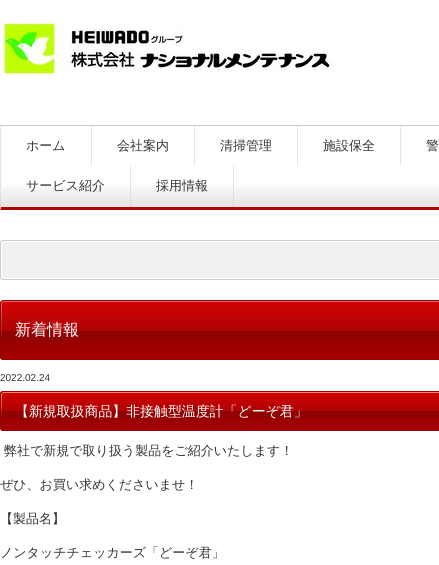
import math
import cairo


def use_color(cr, r, g, b):
  cr.set_source_rgb(r / 255, g / 255, b / 255)

def text(cr, x, y, s, family, size, color, bold=False, italic=False):
  cr.select_font_face(family, cairo.FONT_SLANT_ITALIC if italic else cairo.FONT_SLANT_NORMAL, cairo.FONT_WEIGHT_BOLD if bold else cairo.FONT_WEIGHT_NORMAL)
  cr.set_font_size(size)
  use_color(cr, *color)
  cr.move_to(x, y)
  cr.show_text(s)

def box(cr, x, y, w, h, *color):
  use_color(cr, *color)
  cr.rectangle(x, y, w, h)
  cr.fill()

def picture(cr, path, x, y, w, h):
  cr.save()
  cr.set_source_surface(cairo.ImageSurface.create_from_png(path), x, y)
  cr.rectangle(x, y, w, h)
  cr.fill()
  cr.restore()

def draw(cr):
  use_color(cr, 255, 255, 255)
  cr.paint()
  picture(cr, "img_01.png", 0, 20, 335, 57)
  box(cr, 0, 125, 439, 1, 206, 206, 206)
  picture(cr, "img_02.png", 0, 185, 439, 22)
  use_color(cr, 176, 4, 4)
  cr.new_path()
  cr.move_to(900, 210)
  cr.line_to(0, 210)
  cr.line_to(1, 207)
  cr.line_to(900, 207)
  cr.close_path()
  cr.fill()
  cr.new_path()
  cr.move_to(0.5, 126)
  cr.line_to(0.5, 210)
  use_color(cr, 206, 206, 206)
  cr.set_line_width(1)
  cr.set_dash([1, 1])
  cr.stroke()
  cr.new_path()
  cr.move_to(91.5, 126)
  cr.line_to(91.5, 166)
  cr.stroke()
  cr.new_path()
  cr.move_to(194.5, 126)
  cr.line_to(194.5, 166)
  cr.stroke()
  cr.new_path()
  cr.move_to(297.5, 126)
  cr.line_to(297.5, 166)
  cr.stroke()
  cr.new_path()
  cr.move_to(400.5, 126)
  cr.line_to(400.5, 166)
  cr.stroke()
  cr.new_path()
  cr.move_to(130.5, 166)
  cr.line_to(130.5, 207)
  cr.stroke()
  cr.new_path()
  cr.move_to(233.5, 166)
  cr.line_to(233.5, 207)
  cr.stroke()
  picture(cr, "img_03.png", 0, 240, 439, 40)
  picture(cr, "img_04.png", 0, 300, 439, 60)
  picture(cr, "img_05.png", 0, 391, 439, 40)
  text(cr, 26, 150, "ホーム", "WenQuanYi Zen Hei Medium", 13, (51, 51, 51))
  text(cr, 117, 150, "会社案内", "WenQuanYi Zen Hei Medium", 13, (51, 51, 51))
  text(cr, 220, 150, "清掃管理", "WenQuanYi Zen Hei Medium", 13, (51, 51, 51))
  text(cr, 323, 150, "施設保全", "WenQuanYi Zen Hei Medium", 13, (51, 51, 51))
  text(cr, 426, 150, "警", "WenQuanYi Zen Hei Medium", 13, (51, 51, 51))
  text(cr, 26, 190, "サービス紹介", "WenQuanYi Zen Hei Medium", 13, (51, 51, 51))
  text(cr, 156, 190, "採用情報", "WenQuanYi Zen Hei Medium", 13, (51, 51, 51))
  text(cr, 15, 335, "新着情報", "WenQuanYi Zen Hei Medium", 16, (255, 255, 255))
  text(cr, 0, 381, "2022.02.24", "Liberation Sans", 10, (51, 51, 51))
  text(cr, 15, 416, "【新規取扱商品】非接触型温度計「どーぞ君」", "WenQuanYi Zen Hei Medium", 13.9, (255, 255, 255))
  text(cr, 4, 455, "弊社で新規で取り扱う製品をご紹介いたします！", "WenQuanYi Zen Hei Medium", 13, (51, 51, 51))
  text(cr, 0, 489, "ぜひ、お買い求めくださいませ！", "WenQuanYi Zen Hei Medium", 13, (51, 51, 51))
  text(cr, 0, 523, "【製品名】", "WenQuanYi Zen Hei Medium", 13, (51, 51, 51))
  text(cr, 0, 557, "ノンタッチチェッカーズ「どーぞ君」", "WenQuanYi Zen Hei Medium", 13, (51, 51, 51))


surface = cairo.ImageSurface(cairo.FORMAT_RGB24, 439, 565)
cr = cairo.Context(surface)
options = cairo.FontOptions()
options.set_hint_metrics(cairo.HINT_METRICS_OFF)
options.set_hint_style(cairo.HINT_STYLE_NONE)
cr.set_font_options(options)
cr.set_miter_limit(4)
draw(cr)
surface.write_to_png("out.png")
